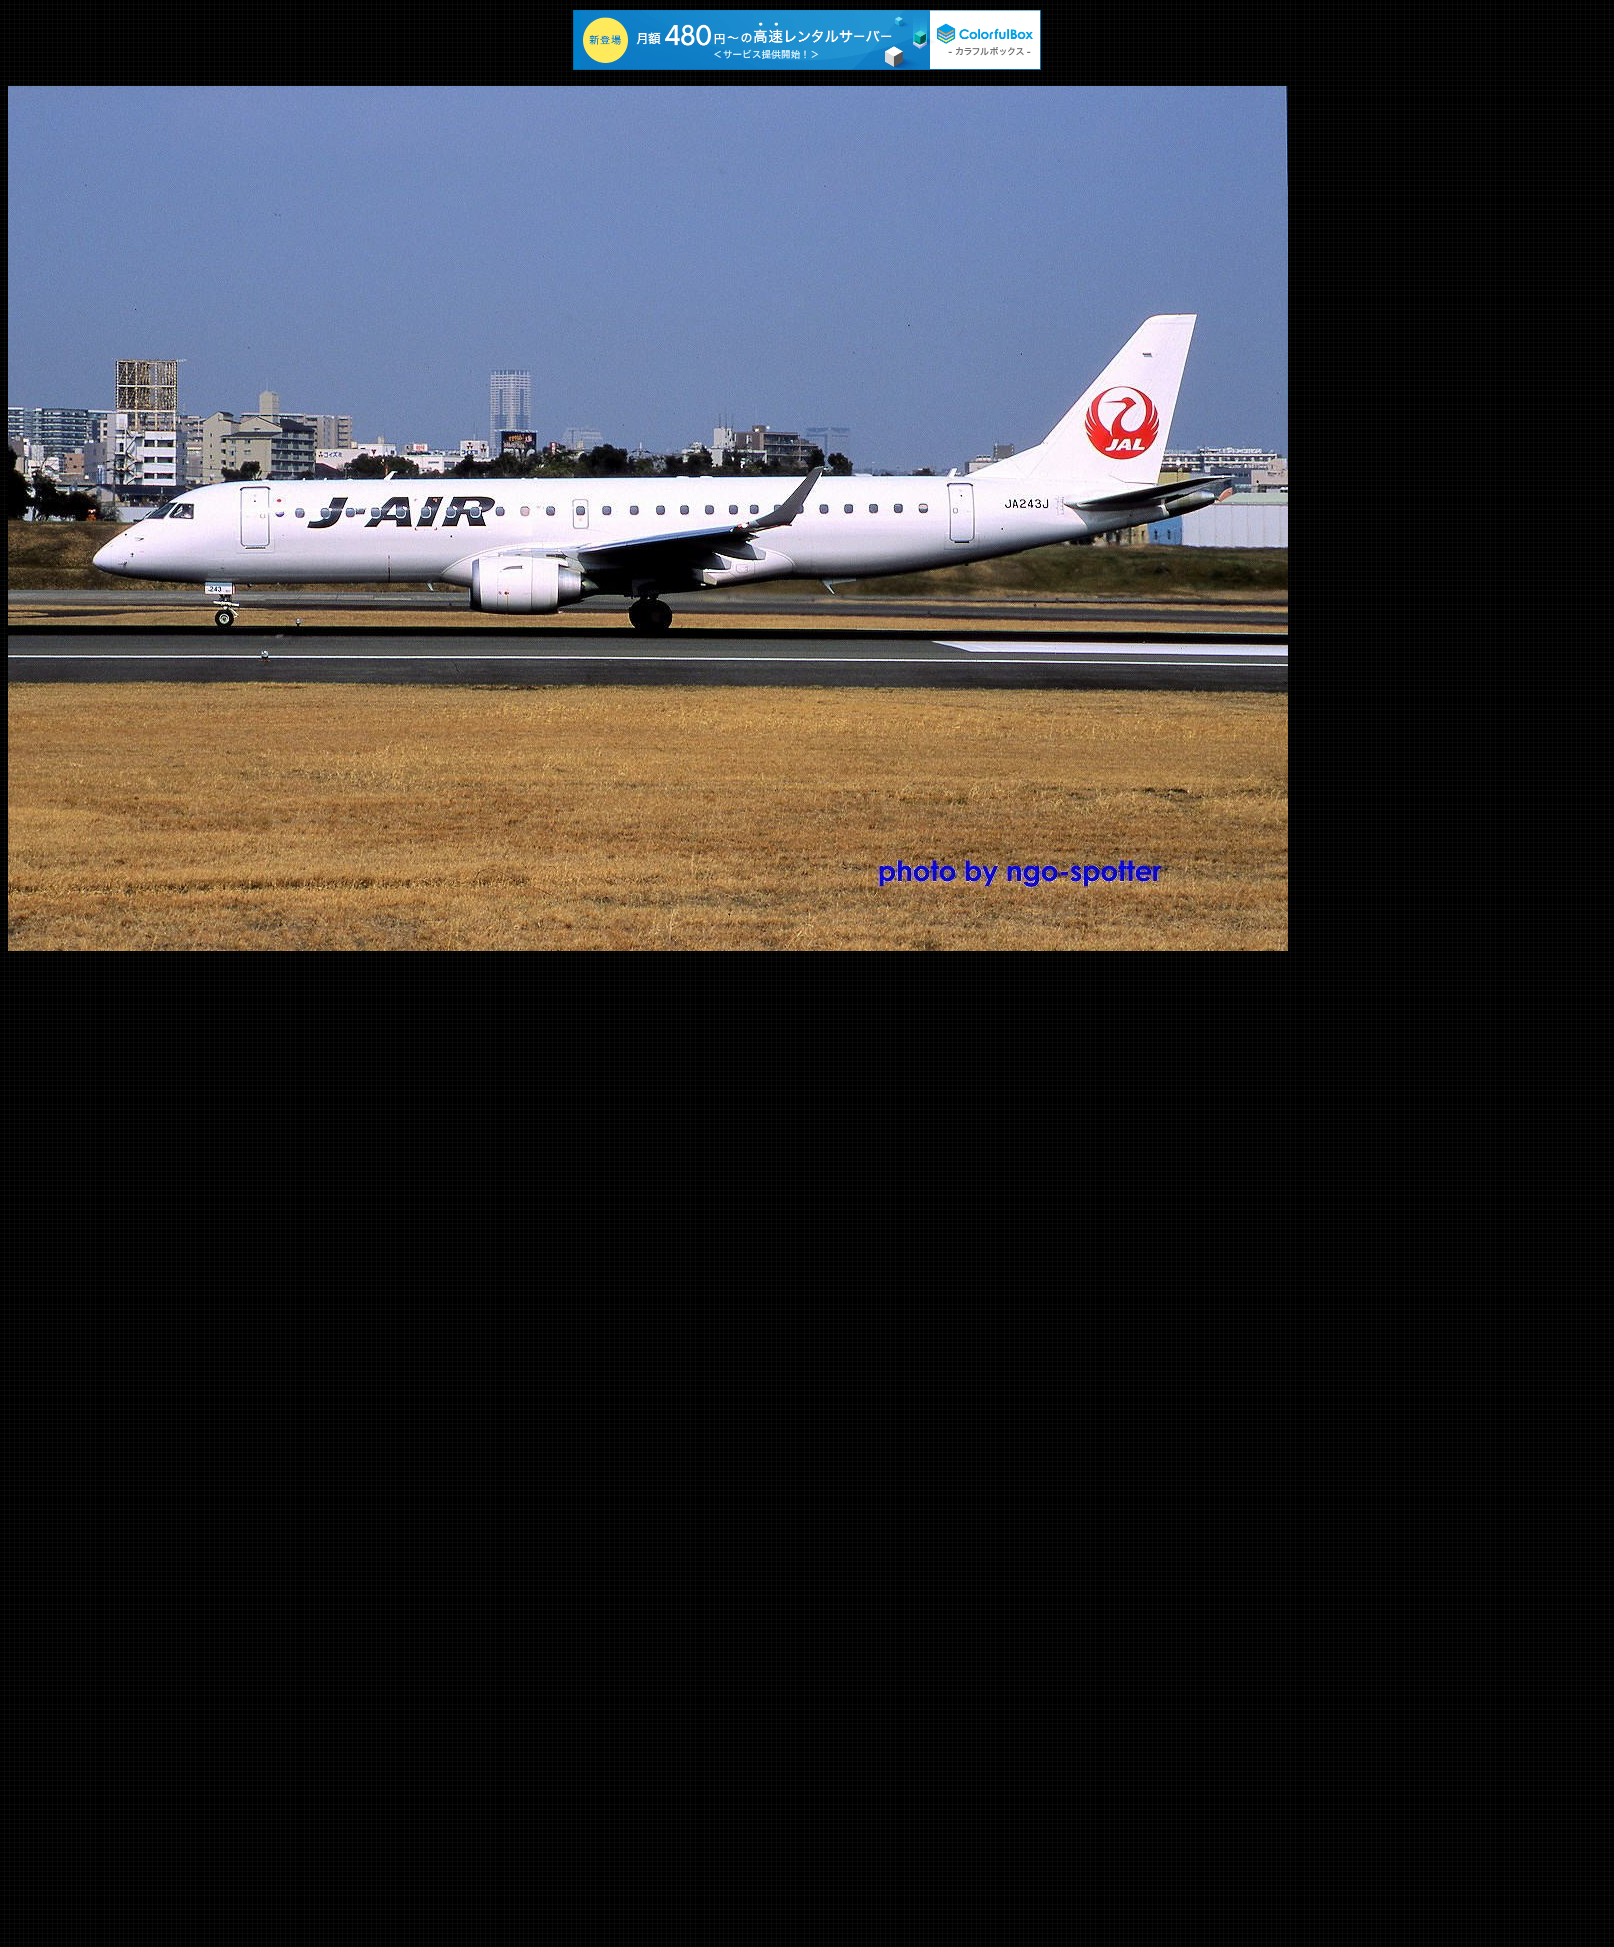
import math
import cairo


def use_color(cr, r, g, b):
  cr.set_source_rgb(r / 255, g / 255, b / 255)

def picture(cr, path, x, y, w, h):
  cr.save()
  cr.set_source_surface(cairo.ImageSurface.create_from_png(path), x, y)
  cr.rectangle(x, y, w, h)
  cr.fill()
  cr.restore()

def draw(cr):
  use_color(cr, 255, 255, 255)
  cr.paint()
  picture(cr, "img_01.png", 0, 0, 1614, 1947)
  picture(cr, "img_02.png", 573, 10, 468, 60)
  picture(cr, "img_03.png", 8, 86, 1280, 865)


surface = cairo.ImageSurface(cairo.FORMAT_RGB24, 1614, 1947)
cr = cairo.Context(surface)
options = cairo.FontOptions()
options.set_hint_metrics(cairo.HINT_METRICS_OFF)
options.set_hint_style(cairo.HINT_STYLE_NONE)
cr.set_font_options(options)
cr.set_miter_limit(4)
draw(cr)
surface.write_to_png("out.png")
